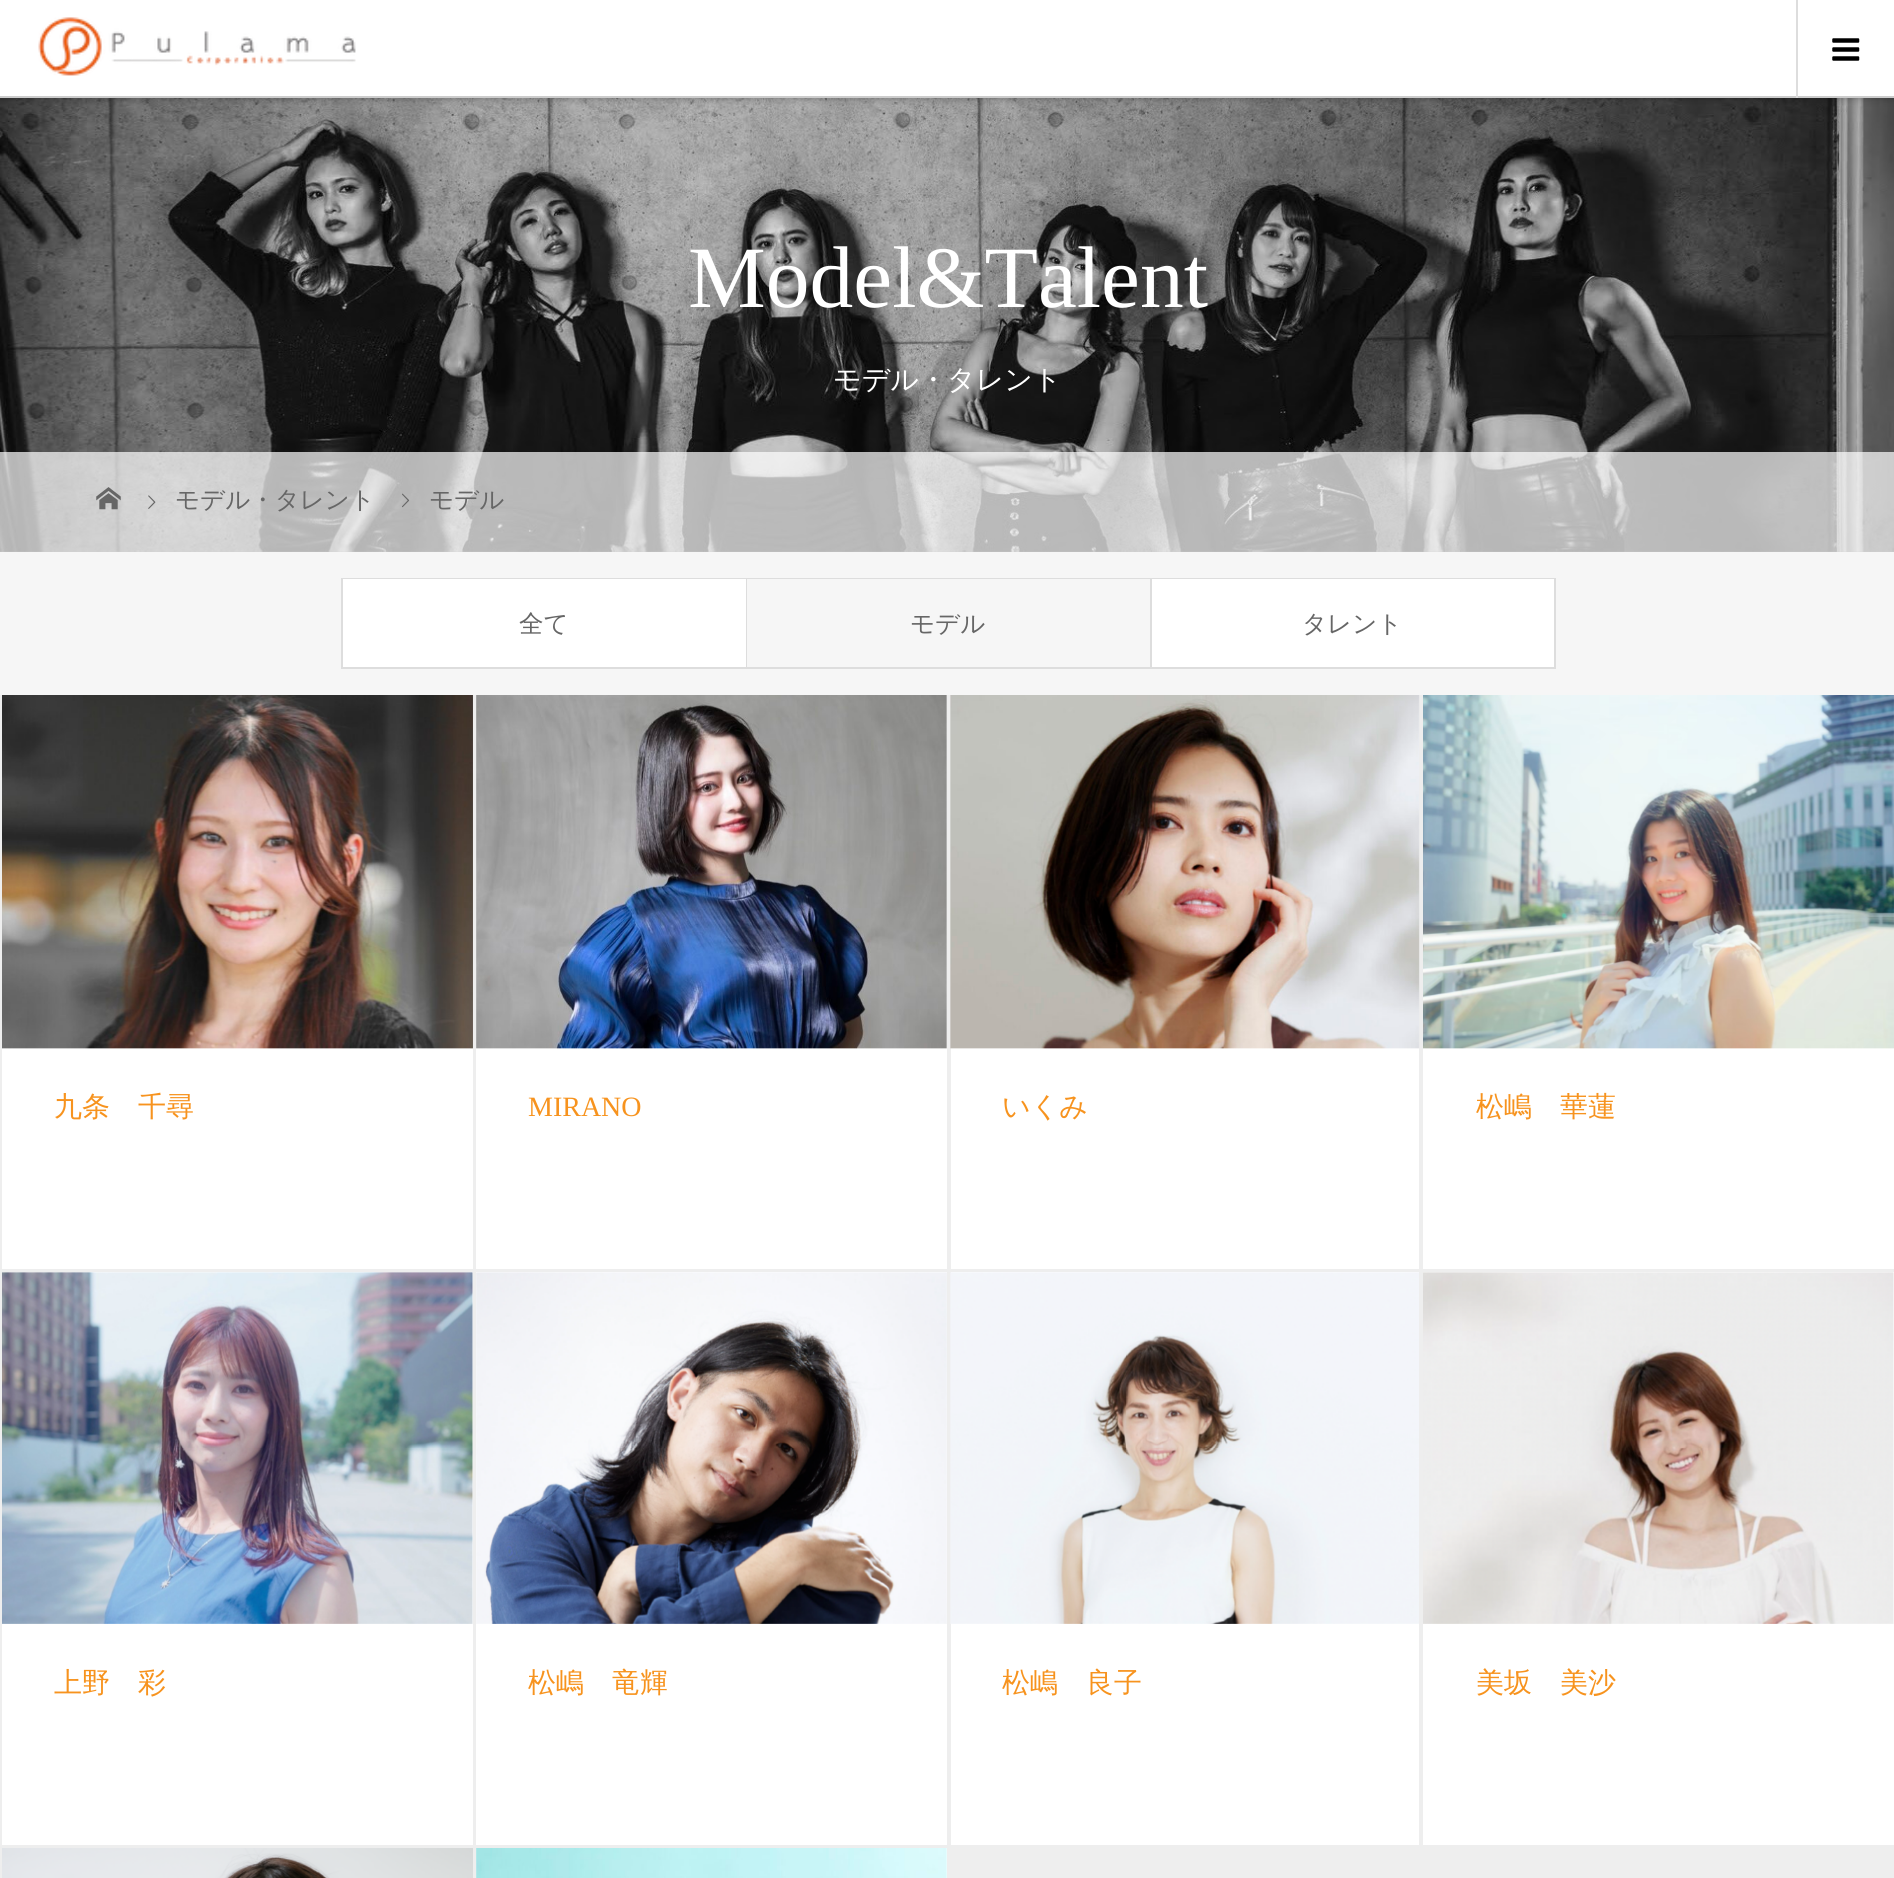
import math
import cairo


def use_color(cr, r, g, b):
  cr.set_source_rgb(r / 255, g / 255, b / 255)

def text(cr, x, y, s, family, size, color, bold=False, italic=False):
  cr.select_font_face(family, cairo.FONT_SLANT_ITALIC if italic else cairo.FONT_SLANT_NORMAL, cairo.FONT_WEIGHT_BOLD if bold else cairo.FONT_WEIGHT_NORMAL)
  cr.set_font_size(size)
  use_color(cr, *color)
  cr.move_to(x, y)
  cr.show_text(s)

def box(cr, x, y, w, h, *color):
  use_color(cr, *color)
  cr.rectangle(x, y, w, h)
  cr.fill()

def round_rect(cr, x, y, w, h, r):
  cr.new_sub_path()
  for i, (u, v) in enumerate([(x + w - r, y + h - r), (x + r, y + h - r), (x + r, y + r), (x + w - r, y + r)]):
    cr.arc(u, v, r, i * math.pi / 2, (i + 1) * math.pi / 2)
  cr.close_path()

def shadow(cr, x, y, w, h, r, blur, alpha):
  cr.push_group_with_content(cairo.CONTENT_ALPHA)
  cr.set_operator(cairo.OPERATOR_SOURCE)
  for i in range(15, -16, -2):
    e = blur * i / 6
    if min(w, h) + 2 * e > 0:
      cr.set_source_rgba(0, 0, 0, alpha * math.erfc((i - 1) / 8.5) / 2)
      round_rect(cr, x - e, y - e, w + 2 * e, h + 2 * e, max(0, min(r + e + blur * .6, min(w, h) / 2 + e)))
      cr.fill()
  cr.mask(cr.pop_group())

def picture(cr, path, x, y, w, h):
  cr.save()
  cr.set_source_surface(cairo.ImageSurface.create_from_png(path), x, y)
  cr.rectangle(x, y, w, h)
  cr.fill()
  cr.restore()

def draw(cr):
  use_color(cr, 246, 246, 246)
  cr.paint()
  picture(cr, "img_03.png", 0, 98, 1894, 454)
  use_color(cr, 0, 0, 0)
  shadow(cr, 0, 2, 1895, 98, 0, 3.5, 0.2)
  box(cr, 0, 0, 1894, 96, 255, 255, 255)
  box(cr, 0, 96, 1894, 2, 204, 204, 204)
  picture(cr, "img_01.png", 38, 17, 318, 59)
  box(cr, 1796, 0, 2, 98, 221, 221, 221)
  picture(cr, "img_02.png", 1832, 38, 28, 23)
  cr.set_source_rgba(1, 1, 1, 0.7)
  cr.rectangle(0, 452, 1894, 99)
  cr.fill()
  picture(cr, "img_04.png", 96, 487, 25, 23)
  picture(cr, "img_05.png", 148, 495, 8, 14)
  picture(cr, "img_06.png", 402, 493, 8, 15)
  cr.rectangle(342, 579, 404, 89)
  use_color(cr, 221, 221, 221)
  cr.stroke()
  box(cr, 343, 579, 403, 88, 255, 255, 255)
  box(cr, 747, 578, 809, 1, 221, 221, 221)
  box(cr, 1150, 578, 2, 91, 221, 221, 221)
  box(cr, 747, 667, 405, 2, 221, 221, 221)
  box(cr, 1554, 578, 2, 91, 221, 221, 221)
  box(cr, 1152, 667, 404, 2, 221, 221, 221)
  box(cr, 1152, 579, 402, 88, 255, 255, 255)
  box(cr, 472, 1849, 1422, 29, 238, 238, 238)
  box(cr, 2, 695, 471, 574, 255, 255, 255)
  box(cr, 473, 695, 1, 1153, 238, 238, 238)
  box(cr, 0, 1269, 474, 3, 238, 238, 238)
  box(cr, 0, 695, 2, 577, 238, 238, 238)
  picture(cr, "img_07.png", 2, 695, 471, 354)
  box(cr, 476, 695, 471, 574, 255, 255, 255)
  box(cr, 947, 695, 2, 1154, 238, 238, 238)
  box(cr, 474, 1269, 475, 3, 238, 238, 238)
  box(cr, 474, 695, 2, 577, 238, 238, 238)
  picture(cr, "img_08.png", 476, 695, 471, 354)
  box(cr, 951, 695, 468, 574, 255, 255, 255)
  box(cr, 1419, 695, 2, 1153, 238, 238, 238)
  box(cr, 949, 1269, 945, 3, 238, 238, 238)
  box(cr, 949, 695, 2, 577, 238, 238, 238)
  picture(cr, "img_09.png", 950, 695, 470, 354)
  box(cr, 1423, 695, 471, 574, 255, 255, 255)
  box(cr, 1421, 695, 2, 577, 238, 238, 238)
  picture(cr, "img_10.png", 1423, 695, 471, 354)
  box(cr, 2, 1272, 471, 573, 255, 255, 255)
  box(cr, 0, 1845, 474, 4, 238, 238, 238)
  box(cr, 0, 1272, 2, 606, 238, 238, 238)
  picture(cr, "img_11.png", 2, 1272, 471, 352)
  box(cr, 476, 1272, 471, 573, 255, 255, 255)
  box(cr, 474, 1845, 475, 3, 238, 238, 238)
  box(cr, 474, 1272, 2, 577, 238, 238, 238)
  picture(cr, "img_12.png", 476, 1272, 471, 352)
  box(cr, 951, 1272, 468, 573, 255, 255, 255)
  box(cr, 949, 1845, 945, 4, 238, 238, 238)
  box(cr, 949, 1272, 2, 576, 238, 238, 238)
  picture(cr, "img_13.png", 950, 1272, 469, 352)
  box(cr, 1423, 1272, 471, 573, 255, 255, 255)
  box(cr, 1421, 1272, 2, 576, 238, 238, 238)
  picture(cr, "img_14.png", 1423, 1272, 471, 352)
  picture(cr, "img_15.png", 2, 1848, 471, 30)
  box(cr, 476, 1848, 471, 30, 255, 255, 255)
  picture(cr, "img_16.png", 476, 1848, 471, 30)
  text(cr, 688, 307, "Model&Talent", "Liberation Serif", 87.5, (255, 255, 255))
  text(cr, 833, 389, "モデル・タレント", "WenQuanYi Zen Hei Medium", 28, (255, 255, 255))
  text(cr, 175, 508, "モデル・タレント", "WenQuanYi Zen Hei Medium", 24.5, (102, 102, 102))
  text(cr, 429, 508, "モデル", "WenQuanYi Zen Hei Medium", 24.5, (102, 102, 102))
  text(cr, 519, 632, "全て", "WenQuanYi Zen Hei Medium", 24.5, (102, 102, 102))
  text(cr, 910, 632, "モデル", "WenQuanYi Zen Hei Medium", 24.5, (102, 102, 102))
  text(cr, 1302, 632, "タレント", "WenQuanYi Zen Hei Medium", 24.5, (102, 102, 102))
  text(cr, 54, 1116, "九条　千尋", "WenQuanYi Zen Hei Medium", 28, (247, 147, 30))
  text(cr, 528, 1116, "MIRANO", "Liberation Serif", 28, (247, 147, 30))
  text(cr, 1002, 1116, "いくみ", "WenQuanYi Zen Hei Medium", 28, (247, 147, 30))
  text(cr, 1476, 1116, "松嶋　華蓮", "WenQuanYi Zen Hei Medium", 28, (247, 147, 30))
  text(cr, 54, 1692, "上野　彩", "WenQuanYi Zen Hei Medium", 28, (247, 147, 30))
  text(cr, 528, 1692, "松嶋　竜輝", "WenQuanYi Zen Hei Medium", 28, (247, 147, 30))
  text(cr, 1002, 1692, "松嶋　良子", "WenQuanYi Zen Hei Medium", 28, (247, 147, 30))
  text(cr, 1476, 1692, "美坂　美沙", "WenQuanYi Zen Hei Medium", 28, (247, 147, 30))


surface = cairo.ImageSurface(cairo.FORMAT_RGB24, 1894, 1878)
cr = cairo.Context(surface)
options = cairo.FontOptions()
options.set_hint_metrics(cairo.HINT_METRICS_OFF)
options.set_hint_style(cairo.HINT_STYLE_NONE)
cr.set_font_options(options)
cr.set_miter_limit(4)
draw(cr)
surface.write_to_png("out.png")
